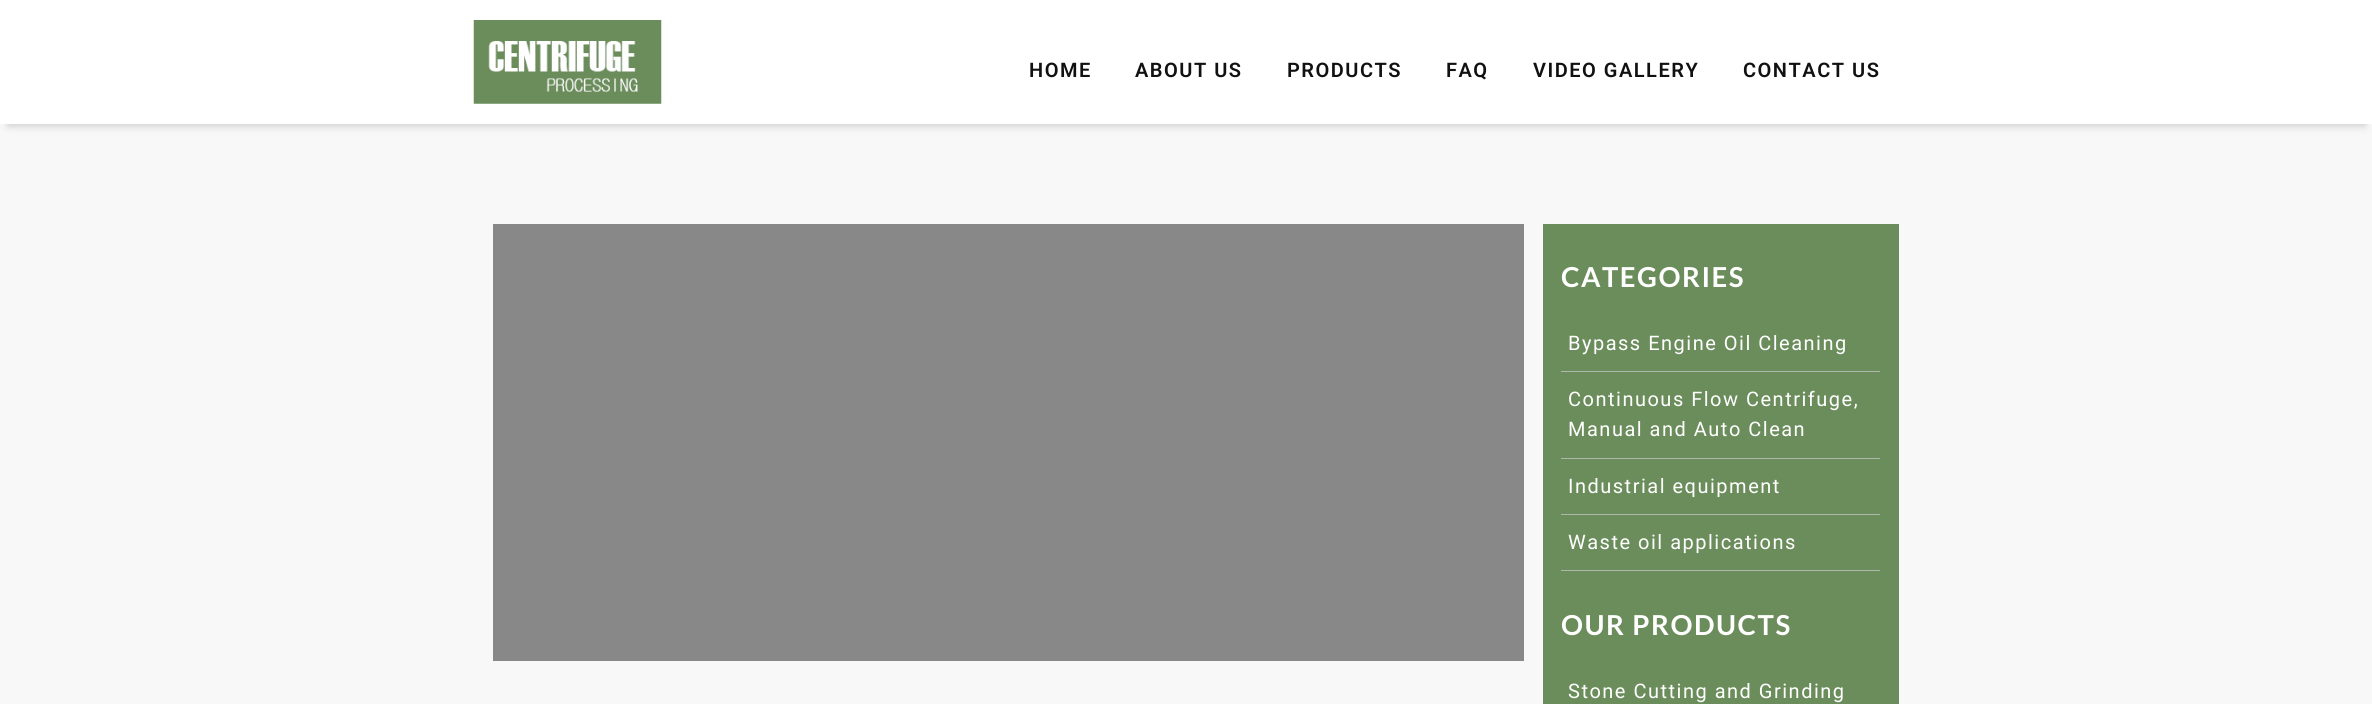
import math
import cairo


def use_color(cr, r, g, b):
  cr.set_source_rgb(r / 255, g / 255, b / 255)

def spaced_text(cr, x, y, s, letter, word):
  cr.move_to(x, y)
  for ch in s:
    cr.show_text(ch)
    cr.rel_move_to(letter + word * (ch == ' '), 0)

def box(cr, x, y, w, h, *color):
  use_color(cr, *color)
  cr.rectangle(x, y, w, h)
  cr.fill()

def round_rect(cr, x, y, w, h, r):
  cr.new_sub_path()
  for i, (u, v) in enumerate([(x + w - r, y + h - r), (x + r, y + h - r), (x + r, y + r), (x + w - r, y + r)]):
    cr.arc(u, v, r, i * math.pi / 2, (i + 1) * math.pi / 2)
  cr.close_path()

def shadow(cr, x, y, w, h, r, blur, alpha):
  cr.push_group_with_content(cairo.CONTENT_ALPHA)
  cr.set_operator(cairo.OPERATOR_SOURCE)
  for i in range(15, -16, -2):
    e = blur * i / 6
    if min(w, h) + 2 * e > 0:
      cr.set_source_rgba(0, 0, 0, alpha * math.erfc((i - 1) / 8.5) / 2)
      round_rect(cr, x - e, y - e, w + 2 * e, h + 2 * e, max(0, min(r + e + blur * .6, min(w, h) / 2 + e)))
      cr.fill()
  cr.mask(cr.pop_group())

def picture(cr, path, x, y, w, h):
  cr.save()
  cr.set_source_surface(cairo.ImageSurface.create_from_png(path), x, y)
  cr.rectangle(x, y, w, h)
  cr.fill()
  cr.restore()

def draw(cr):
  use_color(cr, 255, 255, 255)
  cr.paint()
  box(cr, 0, 124, 2372, 580, 248, 248, 248)
  cr.save()
  cr.set_fill_rule(cairo.FILL_RULE_EVEN_ODD)
  cr.new_path()
  cr.move_to(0, 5)
  cr.line_to(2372, 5)
  cr.line_to(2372, 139)
  cr.line_to(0, 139)
  cr.close_path()
  cr.move_to(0, 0)
  cr.line_to(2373, 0)
  cr.line_to(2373, 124)
  cr.line_to(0, 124)
  cr.close_path()
  cr.clip()
  use_color(cr, 204, 204, 204)
  shadow(cr, 8, 18, 2357, 108, 0, 4, 1)
  cr.restore()
  picture(cr, "img_01.png", 473, 20, 189, 84)
  cr.save()
  cr.rectangle(493, 224, 1031, 437)
  cr.clip()
  use_color(cr, 136, 136, 136)
  cr.new_path()
  cr.move_to(1180, -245)
  cr.line_to(492, -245)
  cr.line_to(492, 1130)
  cr.line_to(1524, 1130)
  cr.line_to(1524, 99)
  cr.close_path()
  cr.move_to(1180, 99)
  cr.line_to(1180, -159)
  cr.line_to(1438, 99)
  cr.close_path()
  cr.fill()
  cr.restore()
  box(cr, 1543, 224, 356, 480, 107, 141, 91)
  box(cr, 1561, 371, 319, 1, 175, 185, 170)
  box(cr, 1561, 458, 319, 1, 175, 185, 170)
  box(cr, 1561, 514, 319, 1, 175, 185, 170)
  box(cr, 1561, 570, 319, 1, 175, 185, 170)
  cr.select_font_face("Roboto SemiBold")
  cr.set_font_size(20)
  use_color(cr, 17, 17, 17)
  spaced_text(cr, 1029, 77, "HOME", 1.5, 0)
  spaced_text(cr, 1135, 77, "ABOUT US", 1.5, 0)
  spaced_text(cr, 1287, 77, "PRODUCTS", 1.5, 0)
  spaced_text(cr, 1446, 77, "FAQ", 1.5, 0)
  spaced_text(cr, 1533, 77, "VIDEO GALLERY", 1.5, 0)
  spaced_text(cr, 1743, 77, "CONTACT US", 1.5, 0)
  cr.select_font_face("Lato", cairo.FONT_SLANT_NORMAL, cairo.FONT_WEIGHT_BOLD)
  cr.set_font_size(27.5)
  use_color(cr, 255, 255, 255)
  spaced_text(cr, 1561, 287, "CATEGORIES", 1.5, 0)
  cr.select_font_face("Roboto")
  cr.set_font_size(20)
  spaced_text(cr, 1568, 350, "Bypass Engine Oil Cleaning", 1.5, 0)
  spaced_text(cr, 1568, 406, "Continuous Flow Centrifuge,", 1.5, 0)
  spaced_text(cr, 1568, 436, "Manual and Auto Clean", 1.5, 0)
  spaced_text(cr, 1568, 493, "Industrial equipment", 1.5, 0)
  spaced_text(cr, 1568, 549, "Waste oil applications", 1.5, 0)
  cr.select_font_face("Lato", cairo.FONT_SLANT_NORMAL, cairo.FONT_WEIGHT_BOLD)
  cr.set_font_size(27.5)
  spaced_text(cr, 1561, 635, "OUR PRODUCTS", 1.5, 0)
  cr.select_font_face("Roboto")
  cr.set_font_size(20)
  spaced_text(cr, 1568, 698, "Stone Cutting and Grinding", 1.5, 0)


surface = cairo.ImageSurface(cairo.FORMAT_RGB24, 2372, 704)
cr = cairo.Context(surface)
options = cairo.FontOptions()
options.set_hint_metrics(cairo.HINT_METRICS_OFF)
options.set_hint_style(cairo.HINT_STYLE_NONE)
cr.set_font_options(options)
cr.set_miter_limit(4)
draw(cr)
surface.write_to_png("out.png")
